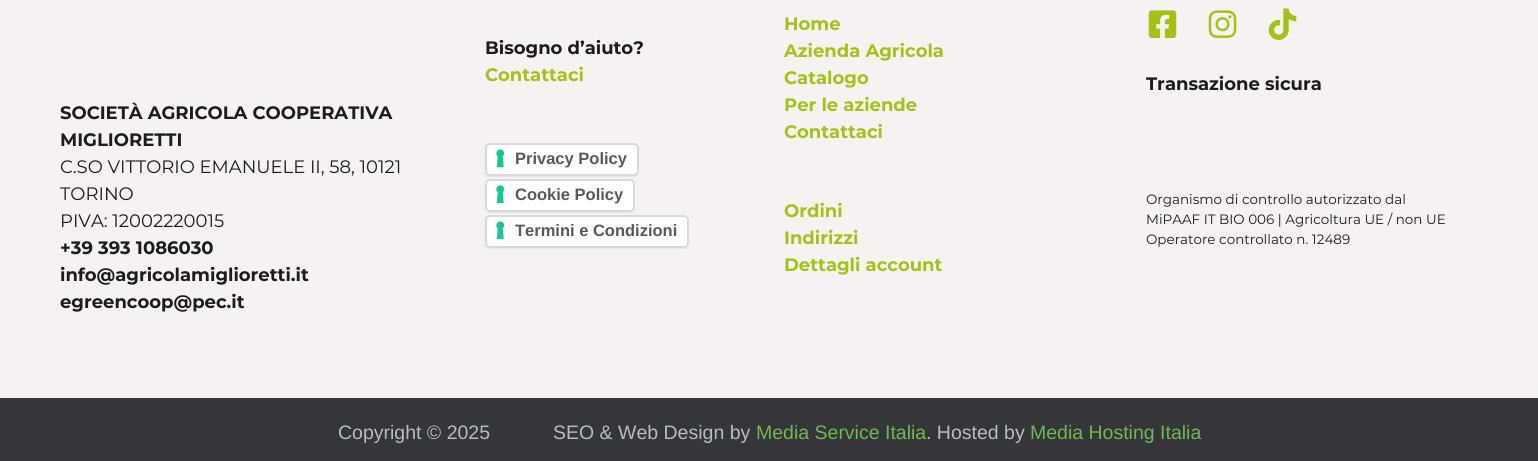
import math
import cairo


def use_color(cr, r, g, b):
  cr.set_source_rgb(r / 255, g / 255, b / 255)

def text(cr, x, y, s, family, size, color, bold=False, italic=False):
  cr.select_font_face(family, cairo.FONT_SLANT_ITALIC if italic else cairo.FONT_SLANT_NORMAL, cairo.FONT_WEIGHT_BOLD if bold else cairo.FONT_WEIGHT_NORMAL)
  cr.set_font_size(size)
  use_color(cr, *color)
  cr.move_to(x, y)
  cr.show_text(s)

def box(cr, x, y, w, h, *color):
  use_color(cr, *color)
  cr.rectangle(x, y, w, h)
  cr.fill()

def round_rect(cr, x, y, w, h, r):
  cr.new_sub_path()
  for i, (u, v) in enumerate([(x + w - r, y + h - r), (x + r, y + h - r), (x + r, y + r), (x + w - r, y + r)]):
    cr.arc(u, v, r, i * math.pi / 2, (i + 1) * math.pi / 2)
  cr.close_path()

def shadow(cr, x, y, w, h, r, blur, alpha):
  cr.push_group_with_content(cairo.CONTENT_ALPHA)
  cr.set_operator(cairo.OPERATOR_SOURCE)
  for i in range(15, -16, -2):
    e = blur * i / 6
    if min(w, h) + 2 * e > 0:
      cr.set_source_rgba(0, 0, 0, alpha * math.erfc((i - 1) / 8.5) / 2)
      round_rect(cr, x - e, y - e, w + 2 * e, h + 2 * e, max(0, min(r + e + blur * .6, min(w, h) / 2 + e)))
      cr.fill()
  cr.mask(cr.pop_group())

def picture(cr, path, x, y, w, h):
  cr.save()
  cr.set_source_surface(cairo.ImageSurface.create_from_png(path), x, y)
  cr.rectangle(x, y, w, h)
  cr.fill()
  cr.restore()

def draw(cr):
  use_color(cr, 53, 54, 58)
  cr.paint()
  box(cr, 0, 0, 1538, 398, 245, 242, 241)
  use_color(cr, 0, 0, 0)
  shadow(cr, 486, 146, 152, 30, 3, 1, 0.15)
  use_color(cr, 255, 255, 255)
  round_rect(cr, 485, 143, 154, 33, 5)
  cr.fill()
  picture(cr, "img_01.png", 496, 149, 9, 19)
  round_rect(cr, 486, 144, 152, 31, 4)
  cr.set_source_rgba(0, 0, 0, 0.15)
  cr.stroke()
  use_color(cr, 0, 0, 0)
  shadow(cr, 486, 182, 147, 30, 3, 1, 0.15)
  use_color(cr, 255, 255, 255)
  round_rect(cr, 485, 179, 150, 33, 5)
  cr.fill()
  picture(cr, "img_01.png", 496, 185, 9, 19)
  round_rect(cr, 486, 180, 148, 31, 4)
  cr.set_source_rgba(0, 0, 0, 0.15)
  cr.stroke()
  use_color(cr, 0, 0, 0)
  shadow(cr, 486, 218, 201, 30, 3, 1, 0.15)
  use_color(cr, 255, 255, 255)
  round_rect(cr, 485, 215, 204, 33, 5)
  cr.fill()
  picture(cr, "img_01.png", 496, 221, 9, 19)
  round_rect(cr, 486, 216, 202, 31, 4)
  cr.set_source_rgba(0, 0, 0, 0.15)
  cr.stroke()
  picture(cr, "img_02.png", 1148, 10, 29, 28)
  picture(cr, "img_03.png", 1208, 10, 29, 28)
  picture(cr, "img_04.png", 1268, 8, 29, 32)
  text(cr, 60, 119, "SOCIETÀ AGRICOLA COOPERATIVA", "Montserrat", 18, (28, 28, 29), bold=True)
  text(cr, 60, 146, "MIGLIORETTI", "Montserrat", 18, (28, 28, 29), bold=True)
  text(cr, 60, 173, "C.SO VITTORIO EMANUELE II, 58, 10121", "Montserrat", 18, (28, 28, 29))
  text(cr, 60, 200, "TORINO", "Montserrat", 18, (28, 28, 29))
  text(cr, 60, 227, "PIVA: 12002220015", "Montserrat", 18, (28, 28, 29))
  text(cr, 60, 254, "+39 393 1086030", "Montserrat", 18, (28, 28, 29), bold=True)
  text(cr, 60, 281, "info@agricolamiglioretti.it", "Montserrat", 18, (28, 28, 29), bold=True)
  text(cr, 60, 308, "egreencoop@pec.it", "Montserrat", 18, (28, 28, 29), bold=True)
  text(cr, 485, 54, "Bisogno d’aiuto?", "Montserrat", 18, (28, 28, 29), bold=True)
  text(cr, 485, 81, "Contattaci", "Montserrat", 18, (165, 192, 24), bold=True)
  text(cr, 515, 164, "Privacy Policy", "Liberation Sans", 16.5, (89, 89, 89), bold=True)
  text(cr, 515, 200, "Cookie Policy", "Liberation Sans", 16.5, (89, 89, 89), bold=True)
  text(cr, 515, 236, "Termini e Condizioni", "Liberation Sans", 16.5, (89, 89, 89), bold=True)
  text(cr, 784, 30, "Home", "Montserrat", 18, (165, 192, 24), bold=True)
  text(cr, 784, 57, "Azienda Agricola", "Montserrat", 18, (165, 192, 24), bold=True)
  text(cr, 784, 84, "Catalogo", "Montserrat", 18, (165, 192, 24), bold=True)
  text(cr, 784, 111, "Per le aziende", "Montserrat", 18, (165, 192, 24), bold=True)
  text(cr, 784, 138, "Contattaci", "Montserrat", 18, (165, 192, 24), bold=True)
  text(cr, 784, 217, "Ordini", "Montserrat", 18, (165, 192, 24), bold=True)
  text(cr, 784, 244, "Indirizzi", "Montserrat", 18, (165, 192, 24), bold=True)
  text(cr, 784, 271, "Dettagli account", "Montserrat", 18, (165, 192, 24), bold=True)
  text(cr, 1146, 90, "Transazione sicura", "Montserrat", 18, (28, 28, 29), bold=True)
  text(cr, 1146, 204, "Organismo di controllo autorizzato dal", "Montserrat", 13.5, (28, 28, 29))
  text(cr, 1146, 224, "MiPAAF IT BIO 006 | Agricoltura UE / non UE", "Montserrat", 13.5, (28, 28, 29))
  text(cr, 1146, 244, "Operatore controllato n. 12489", "Montserrat", 13.5, (28, 28, 29))
  text(cr, 338, 439, "Copyright © 2025", "Liberation Sans", 19.5, (178, 190, 195))
  text(cr, 553, 439, "SEO & Web Design by", "Liberation Sans", 19.5, (178, 190, 195))
  text(cr, 756, 439, "Media Service Italia", "Liberation Sans", 19.5, (110, 185, 80))
  text(cr, 926, 439, ". Hosted by", "Liberation Sans", 19.5, (178, 190, 195))
  text(cr, 1030, 439, "Media Hosting Italia", "Liberation Sans", 19.5, (110, 185, 80))


surface = cairo.ImageSurface(cairo.FORMAT_RGB24, 1538, 461)
cr = cairo.Context(surface)
options = cairo.FontOptions()
options.set_hint_metrics(cairo.HINT_METRICS_OFF)
options.set_hint_style(cairo.HINT_STYLE_NONE)
cr.set_font_options(options)
cr.set_miter_limit(4)
draw(cr)
surface.write_to_png("out.png")
